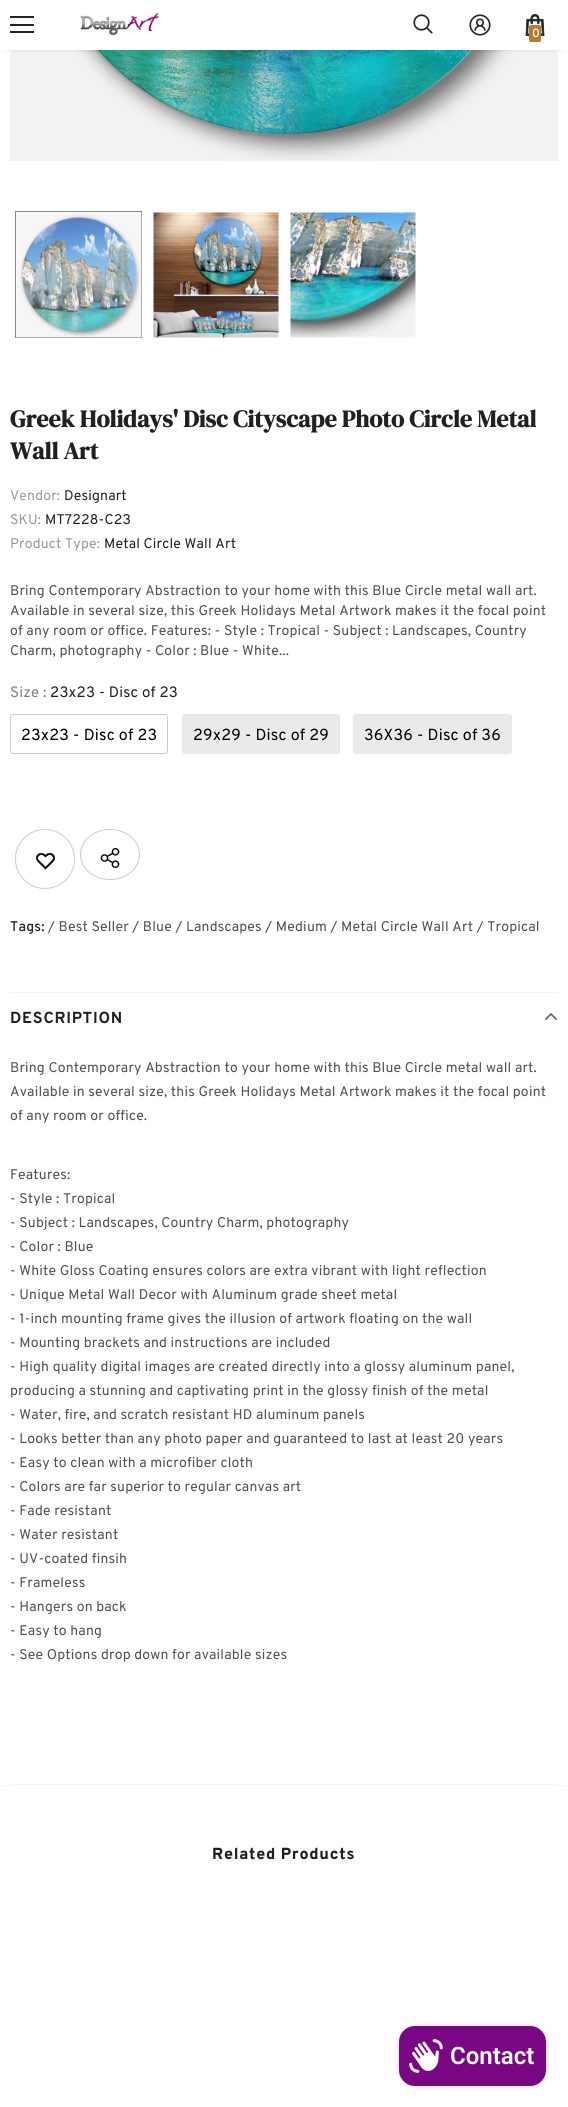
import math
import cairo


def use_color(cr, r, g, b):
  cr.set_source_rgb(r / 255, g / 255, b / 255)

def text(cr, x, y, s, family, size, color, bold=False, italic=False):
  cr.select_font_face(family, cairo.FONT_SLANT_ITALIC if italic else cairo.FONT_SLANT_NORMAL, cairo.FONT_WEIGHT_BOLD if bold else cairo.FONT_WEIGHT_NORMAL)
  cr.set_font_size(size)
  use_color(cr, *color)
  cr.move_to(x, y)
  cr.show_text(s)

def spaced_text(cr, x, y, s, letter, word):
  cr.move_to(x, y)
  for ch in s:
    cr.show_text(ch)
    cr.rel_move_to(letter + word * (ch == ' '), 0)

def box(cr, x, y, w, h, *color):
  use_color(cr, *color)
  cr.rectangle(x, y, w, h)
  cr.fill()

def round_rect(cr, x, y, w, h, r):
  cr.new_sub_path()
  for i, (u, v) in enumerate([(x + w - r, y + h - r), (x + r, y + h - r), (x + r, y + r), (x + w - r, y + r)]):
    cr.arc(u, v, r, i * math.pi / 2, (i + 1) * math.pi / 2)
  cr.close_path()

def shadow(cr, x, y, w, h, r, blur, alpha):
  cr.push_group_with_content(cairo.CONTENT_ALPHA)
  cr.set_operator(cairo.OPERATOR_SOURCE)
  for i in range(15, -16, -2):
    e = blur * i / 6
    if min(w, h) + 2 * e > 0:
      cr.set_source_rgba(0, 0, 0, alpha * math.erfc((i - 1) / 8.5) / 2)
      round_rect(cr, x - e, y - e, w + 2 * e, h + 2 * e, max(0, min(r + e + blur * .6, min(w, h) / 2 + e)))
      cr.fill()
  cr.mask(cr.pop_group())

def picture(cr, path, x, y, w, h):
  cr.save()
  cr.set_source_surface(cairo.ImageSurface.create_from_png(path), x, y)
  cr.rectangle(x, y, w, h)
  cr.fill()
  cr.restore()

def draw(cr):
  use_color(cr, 255, 255, 255)
  cr.paint()
  picture(cr, "img_05.png", 10, 50, 548, 111)
  use_color(cr, 0, 0, 0)
  shadow(cr, 3, 6, 562, 44, 0, 1.5, 0.12)
  box(cr, 1, 4, 566, 46, 255, 255, 255)
  box(cr, 10, 16, 24, 2, 35, 35, 35)
  box(cr, 10, 24, 24, 2, 35, 35, 35)
  box(cr, 10, 31, 24, 2, 35, 35, 35)
  picture(cr, "img_01.png", 80, 12, 79, 24)
  picture(cr, "img_02.png", 413, 14, 20, 20)
  picture(cr, "img_03.png", 469, 14, 22, 22)
  picture(cr, "img_04.png", 525, 14, 20, 22)
  use_color(cr, 186, 122, 45)
  round_rect(cr, 529, 25, 12, 17, 2)
  cr.fill()
  cr.rectangle(15.5, 211.5, 126, 126)
  use_color(cr, 137, 137, 137)
  cr.set_line_width(1)
  cr.stroke()
  picture(cr, "img_06.png", 16, 212, 126, 126)
  picture(cr, "img_07.png", 153, 212, 126, 126)
  picture(cr, "img_08.png", 290, 212, 126, 126)
  round_rect(cr, 10.5, 714.5, 157, 39, 2.5)
  use_color(cr, 204, 204, 204)
  cr.stroke()
  use_color(cr, 234, 234, 234)
  round_rect(cr, 182.5, 714.5, 157, 39, 2.5)
  cr.fill_preserve()
  use_color(cr, 231, 231, 231)
  cr.stroke()
  use_color(cr, 234, 234, 234)
  round_rect(cr, 353.5, 714.5, 158, 39, 2.5)
  cr.fill_preserve()
  use_color(cr, 231, 231, 231)
  cr.stroke()
  cr.arc(45, 859, 29.5, 0, 2 * math.pi)
  use_color(cr, 205, 205, 205)
  cr.stroke()
  picture(cr, "img_09.png", 36, 852, 19, 18)
  cr.new_path()
  cr.move_to(110, 829.5)
  cr.curve_to(126.5, 829.5, 139.5, 840.5, 139.5, 854.5)
  cr.curve_to(139.5, 868.5, 126.5, 879.5, 110, 879.5)
  cr.curve_to(93.5, 879.5, 80.5, 868.5, 80.5, 854.5)
  cr.curve_to(80.5, 840.5, 93.5, 829.5, 110, 829.5)
  cr.close_path()
  cr.stroke()
  picture(cr, "img_10.png", 100, 848, 20, 20)
  box(cr, 10, 992, 548, 1, 246, 246, 246)
  picture(cr, "img_11.png", 544, 1013, 13, 7)
  box(cr, 10, 1784, 548, 1, 246, 246, 246)
  box(cr, 0, 1785, 10, 1, 246, 246, 246)
  box(cr, 558, 1785, 10, 1, 246, 246, 246)
  use_color(cr, 0, 0, 0)
  shadow(cr, 399, 2026, 147, 60, 16, 2.5, 0.15)
  use_color(cr, 121, 7, 132)
  round_rect(cr, 399, 2026, 147, 60, 16)
  cr.fill()
  picture(cr, "img_12.png", 409, 2039, 34, 34)
  text(cr, 532, 37, "0", "Overpass Medium", 12, (255, 255, 255))
  text(cr, 10, 427, "Greek Holidays' Disc Cityscape Photo Circle Metal", "DM Serif Display", 24, (32, 32, 32), bold=True)
  text(cr, 10, 459, "Wall Art", "DM Serif Display", 24, (32, 32, 32), bold=True)
  cr.select_font_face("Overpass")
  cr.set_font_size(14)
  use_color(cr, 153, 153, 153)
  spaced_text(cr, 10, 500, "Vendor:", 0.2, 0)
  use_color(cr, 32, 32, 32)
  spaced_text(cr, 64, 500, "Designart", 0.2, 0)
  use_color(cr, 153, 153, 153)
  spaced_text(cr, 10, 524, "SKU:", 0.2, 0)
  use_color(cr, 32, 32, 32)
  spaced_text(cr, 45, 524, "MT7228-C23", 0.2, 0)
  use_color(cr, 153, 153, 153)
  spaced_text(cr, 10, 548, "Product Type:", 0.2, 0)
  use_color(cr, 32, 32, 32)
  spaced_text(cr, 104, 548, "Metal Circle Wall Art", 0.2, 0)
  use_color(cr, 80, 80, 80)
  spaced_text(cr, 10, 595, "Bring Contemporary Abstraction to your home with this Blue Circle metal wall art.", 0.2, 0)
  spaced_text(cr, 10, 615, "Available in several size, this Greek Holidays Metal Artwork makes it the focal point", 0.2, 0)
  spaced_text(cr, 10, 635, "of any room or office. Features: - Style : Tropical - Subject : Landscapes, Country", 0.2, 0)
  spaced_text(cr, 10, 655, "Charm, photography - Color : Blue - White...", 0.2, 0)
  cr.set_font_size(15)
  use_color(cr, 128, 128, 128)
  spaced_text(cr, 10, 697, "Size :", 0.2, 0)
  use_color(cr, 32, 32, 32)
  spaced_text(cr, 50, 697, "23x23 - Disc of 23", 0.2, 0)
  cr.set_font_size(16)
  use_color(cr, 0, 0, 0)
  spaced_text(cr, 21, 740, "23x23 - Disc of 23", 0.2, 0)
  spaced_text(cr, 193, 740, "29x29 - Disc of 29", 0.2, 0)
  spaced_text(cr, 364, 740, "36X36 - Disc of 36", 0.2, 0)
  cr.select_font_face("Overpass Medium")
  cr.set_font_size(14)
  use_color(cr, 32, 32, 32)
  spaced_text(cr, 10, 931, "Tags:", 0.2, 0)
  cr.select_font_face("Overpass")
  use_color(cr, 80, 80, 80)
  spaced_text(cr, 48, 931, "/ Best Seller / Blue / Landscapes / Medium / Metal Circle Wall Art / Tropical", 0.2, 0)
  cr.select_font_face("Overpass", cairo.FONT_SLANT_NORMAL, cairo.FONT_WEIGHT_BOLD)
  cr.set_font_size(16)
  use_color(cr, 32, 32, 32)
  spaced_text(cr, 10, 1023, "DESCRIPTION", 0.75, 0)
  cr.select_font_face("Overpass")
  cr.set_font_size(14)
  use_color(cr, 80, 80, 80)
  spaced_text(cr, 10, 1072, "Bring Contemporary Abstraction to your home with this Blue Circle metal wall art.", 0.2, 0)
  spaced_text(cr, 10, 1096, "Available in several size, this Greek Holidays Metal Artwork makes it the focal point", 0.2, 0)
  spaced_text(cr, 10, 1120, "of any room or office.", 0.2, 0)
  spaced_text(cr, 10, 1179, "Features:", 0.2, 0)
  spaced_text(cr, 10, 1203, "- Style : Tropical", 0.2, 0)
  spaced_text(cr, 10, 1227, "- Subject : Landscapes, Country Charm, photography", 0.2, 0)
  spaced_text(cr, 10, 1251, "- Color : Blue", 0.2, 0)
  spaced_text(cr, 10, 1275, "- White Gloss Coating ensures colors are extra vibrant with light reflection", 0.2, 0)
  spaced_text(cr, 10, 1299, "- Unique Metal Wall Decor with Aluminum grade sheet metal", 0.2, 0)
  spaced_text(cr, 10, 1323, "- 1-inch mounting frame gives the illusion of artwork floating on the wall", 0.2, 0)
  spaced_text(cr, 10, 1347, "- Mounting brackets and instructions are included", 0.2, 0)
  spaced_text(cr, 10, 1371, "- High quality digital images are created directly into a glossy aluminum panel,", 0.2, 0)
  spaced_text(cr, 10, 1395, "producing a stunning and captivating print in the glossy finish of the metal", 0.2, 0)
  spaced_text(cr, 10, 1419, "- Water, fire, and scratch resistant HD aluminum panels", 0.2, 0)
  spaced_text(cr, 10, 1443, "- Looks better than any photo paper and guaranteed to last at least 20 years", 0.2, 0)
  spaced_text(cr, 10, 1467, "- Easy to clean with a microfiber cloth", 0.2, 0)
  spaced_text(cr, 10, 1491, "- Colors are far superior to regular canvas art", 0.2, 0)
  spaced_text(cr, 10, 1515, "- Fade resistant", 0.2, 0)
  spaced_text(cr, 10, 1539, "- Water resistant", 0.2, 0)
  spaced_text(cr, 10, 1563, "- UV-coated finsih", 0.2, 0)
  spaced_text(cr, 10, 1587, "- Frameless", 0.2, 0)
  spaced_text(cr, 10, 1611, "- Hangers on back", 0.2, 0)
  spaced_text(cr, 10, 1635, "- Easy to hang", 0.2, 0)
  spaced_text(cr, 10, 1659, "- See Options drop down for available sizes", 0.2, 0)
  cr.select_font_face("Overpass ExtraBold")
  cr.set_font_size(16)
  use_color(cr, 32, 32, 32)
  spaced_text(cr, 212, 1859, "Related Products", 0.75, 0)
  text(cr, 450, 2064, "Contact", "Roboto SemiBold", 24, (255, 255, 255))


surface = cairo.ImageSurface(cairo.FORMAT_RGB24, 568, 2107)
cr = cairo.Context(surface)
options = cairo.FontOptions()
options.set_hint_metrics(cairo.HINT_METRICS_OFF)
options.set_hint_style(cairo.HINT_STYLE_NONE)
cr.set_font_options(options)
cr.set_miter_limit(4)
draw(cr)
surface.write_to_png("out.png")
